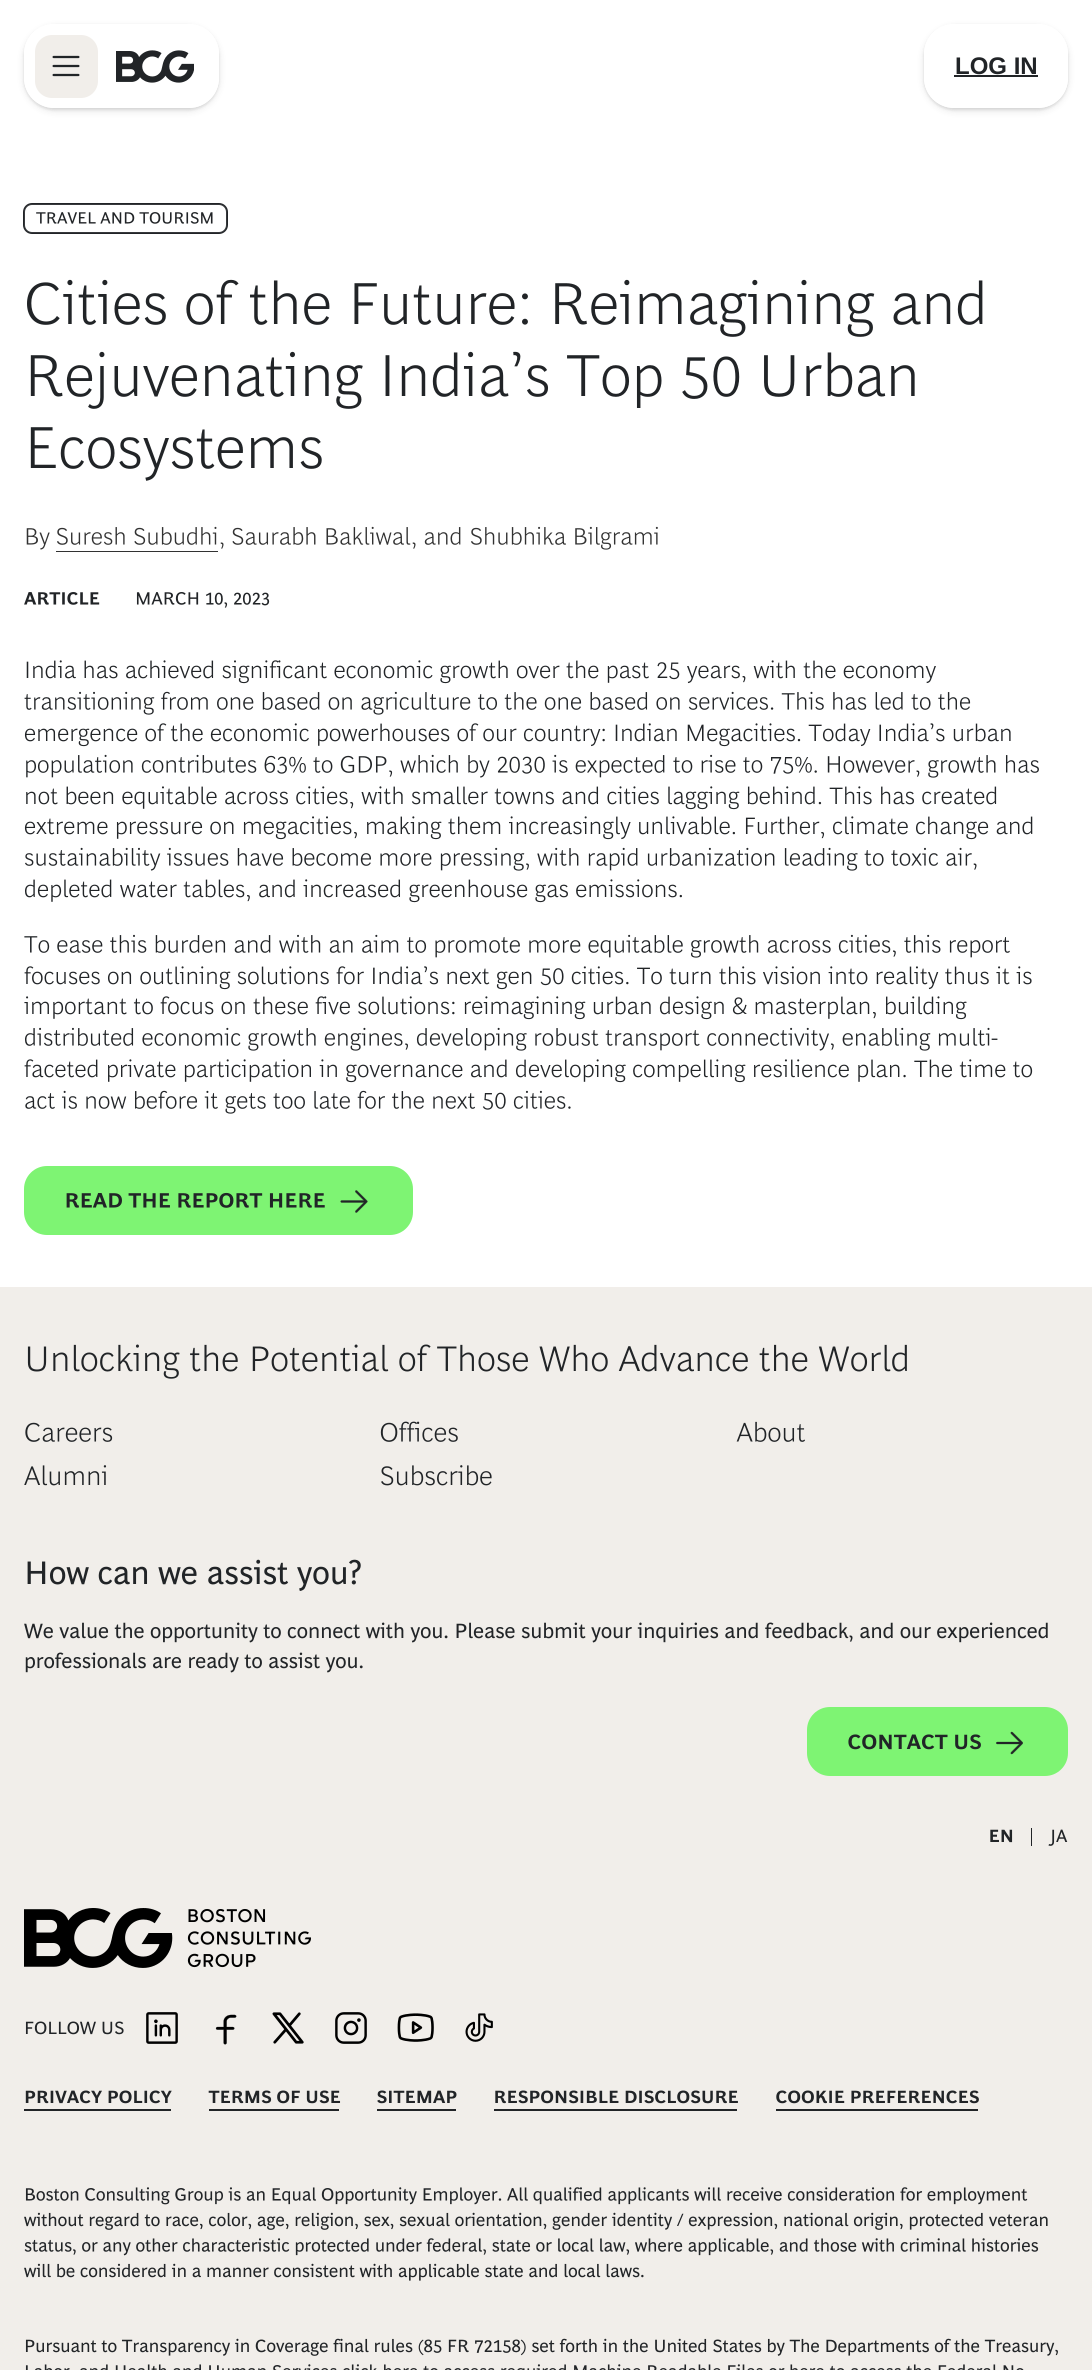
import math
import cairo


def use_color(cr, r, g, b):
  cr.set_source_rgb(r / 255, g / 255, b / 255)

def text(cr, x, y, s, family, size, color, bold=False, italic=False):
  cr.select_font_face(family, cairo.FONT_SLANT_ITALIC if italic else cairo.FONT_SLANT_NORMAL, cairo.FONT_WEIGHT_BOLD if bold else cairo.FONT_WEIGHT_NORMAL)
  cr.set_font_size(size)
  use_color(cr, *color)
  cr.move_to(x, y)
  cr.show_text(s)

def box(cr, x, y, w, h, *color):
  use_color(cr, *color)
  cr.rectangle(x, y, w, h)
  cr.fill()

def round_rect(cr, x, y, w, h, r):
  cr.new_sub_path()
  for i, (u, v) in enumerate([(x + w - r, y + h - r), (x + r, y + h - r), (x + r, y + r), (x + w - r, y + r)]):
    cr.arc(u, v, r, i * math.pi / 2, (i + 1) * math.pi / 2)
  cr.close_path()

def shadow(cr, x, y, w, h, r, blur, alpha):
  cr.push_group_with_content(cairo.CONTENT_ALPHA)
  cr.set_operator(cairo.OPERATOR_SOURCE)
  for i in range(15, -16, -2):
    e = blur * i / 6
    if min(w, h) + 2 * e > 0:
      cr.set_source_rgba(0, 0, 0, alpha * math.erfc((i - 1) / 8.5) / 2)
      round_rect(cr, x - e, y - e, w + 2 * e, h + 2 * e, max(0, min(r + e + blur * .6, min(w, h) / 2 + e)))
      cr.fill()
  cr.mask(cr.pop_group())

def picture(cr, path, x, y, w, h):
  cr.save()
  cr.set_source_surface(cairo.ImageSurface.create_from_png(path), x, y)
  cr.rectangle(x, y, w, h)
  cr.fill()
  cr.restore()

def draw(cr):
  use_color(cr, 255, 255, 255)
  cr.paint()
  cr.save()
  cr.set_fill_rule(cairo.FILL_RULE_EVEN_ODD)
  cr.new_path()
  cr.move_to(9, 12)
  cr.line_to(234, 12)
  cr.line_to(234, 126)
  cr.line_to(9, 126)
  cr.close_path()
  cr.move_to(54, 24)
  cr.line_to(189, 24)
  cr.curve_to(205.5, 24, 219, 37.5, 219, 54)
  cr.line_to(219, 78)
  cr.curve_to(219, 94.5, 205.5, 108, 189, 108)
  cr.line_to(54, 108)
  cr.curve_to(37.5, 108, 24, 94.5, 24, 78)
  cr.line_to(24, 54)
  cr.curve_to(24, 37.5, 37.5, 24, 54, 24)
  cr.close_path()
  cr.clip()
  use_color(cr, 0, 0, 0)
  shadow(cr, 24, 27, 195, 84, 30, 4.5, 0.08)
  cr.restore()
  cr.save()
  cr.set_fill_rule(cairo.FILL_RULE_EVEN_ODD)
  cr.new_path()
  cr.move_to(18, 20)
  cr.line_to(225, 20)
  cr.line_to(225, 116)
  cr.line_to(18, 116)
  cr.close_path()
  cr.move_to(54, 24)
  cr.line_to(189, 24)
  cr.curve_to(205.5, 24, 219, 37.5, 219, 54)
  cr.line_to(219, 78)
  cr.curve_to(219, 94.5, 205.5, 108, 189, 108)
  cr.line_to(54, 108)
  cr.curve_to(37.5, 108, 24, 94.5, 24, 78)
  cr.line_to(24, 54)
  cr.curve_to(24, 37.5, 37.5, 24, 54, 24)
  cr.close_path()
  cr.clip()
  use_color(cr, 0, 0, 0)
  shadow(cr, 24, 26, 195, 84, 30, 1.5, 0.12)
  cr.restore()
  cr.set_source_rgba(1, 1, 1, 0.7)
  round_rect(cr, 24, 24, 195, 84, 30)
  cr.fill()
  use_color(cr, 241, 238, 234)
  round_rect(cr, 35, 35, 63, 63, 17)
  cr.fill()
  picture(cr, "img_01.png", 52, 55, 28, 22)
  picture(cr, "img_02.png", 116, 50, 78, 33)
  cr.save()
  cr.set_fill_rule(cairo.FILL_RULE_EVEN_ODD)
  cr.new_path()
  cr.move_to(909, 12)
  cr.line_to(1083, 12)
  cr.line_to(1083, 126)
  cr.line_to(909, 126)
  cr.close_path()
  cr.move_to(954, 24)
  cr.line_to(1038, 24)
  cr.curve_to(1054.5, 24, 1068, 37.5, 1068, 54)
  cr.line_to(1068, 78)
  cr.curve_to(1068, 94.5, 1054.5, 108, 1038, 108)
  cr.line_to(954, 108)
  cr.curve_to(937.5, 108, 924, 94.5, 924, 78)
  cr.line_to(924, 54)
  cr.curve_to(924, 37.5, 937.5, 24, 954, 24)
  cr.close_path()
  cr.clip()
  use_color(cr, 0, 0, 0)
  shadow(cr, 924, 27, 144, 84, 30, 4.5, 0.08)
  cr.restore()
  cr.save()
  cr.set_fill_rule(cairo.FILL_RULE_EVEN_ODD)
  cr.new_path()
  cr.move_to(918, 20)
  cr.line_to(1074, 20)
  cr.line_to(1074, 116)
  cr.line_to(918, 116)
  cr.close_path()
  cr.move_to(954, 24)
  cr.line_to(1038, 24)
  cr.curve_to(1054.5, 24, 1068, 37.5, 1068, 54)
  cr.line_to(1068, 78)
  cr.curve_to(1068, 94.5, 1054.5, 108, 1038, 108)
  cr.line_to(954, 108)
  cr.curve_to(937.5, 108, 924, 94.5, 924, 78)
  cr.line_to(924, 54)
  cr.curve_to(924, 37.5, 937.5, 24, 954, 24)
  cr.close_path()
  cr.clip()
  use_color(cr, 0, 0, 0)
  shadow(cr, 924, 26, 144, 84, 30, 1.5, 0.12)
  cr.restore()
  cr.set_source_rgba(1, 1, 1, 0.7)
  round_rect(cr, 924, 24, 144, 84, 30)
  cr.fill()
  box(cr, 954, 75, 84, 2, 33, 36, 39)
  round_rect(cr, 24, 204, 203, 29, 8)
  cr.stroke()
  cr.set_source_rgba(1, 1, 1, 0.1)
  round_rect(cr, 24, 204, 203, 29, 8)
  cr.fill()
  picture(cr, "img_03.png", 36, 212, 177, 12)
  picture(cr, "img_04.png", 27, 279, 956, 58)
  picture(cr, "img_05.png", 30, 351, 885, 58)
  picture(cr, "img_06.png", 30, 427, 292, 54)
  picture(cr, "img_07.png", 26, 528, 24, 22)
  picture(cr, "img_08.png", 57, 526, 160, 19)
  picture(cr, "img_09.png", 220, 542, 4, 7)
  picture(cr, "img_10.png", 232, 526, 179, 19)
  picture(cr, "img_11.png", 412, 527, 49, 22)
  picture(cr, "img_12.png", 471, 526, 187, 24)
  box(cr, 56, 551, 162, 1, 50, 50, 50)
  picture(cr, "img_13.png", 24, 592, 76, 13)
  picture(cr, "img_14.png", 136, 592, 134, 16)
  picture(cr, "img_15.png", 26, 660, 910, 24)
  picture(cr, "img_16.png", 24, 691, 947, 24)
  picture(cr, "img_17.png", 24, 723, 987, 24)
  picture(cr, "img_18.png", 26, 754, 1013, 24)
  picture(cr, "img_19.png", 26, 786, 971, 24)
  picture(cr, "img_20.png", 24, 816, 1009, 24)
  picture(cr, "img_21.png", 25, 847, 952, 24)
  picture(cr, "img_22.png", 25, 879, 657, 24)
  picture(cr, "img_23.png", 24, 934, 986, 24)
  picture(cr, "img_24.png", 24, 966, 1008, 24)
  picture(cr, "img_25.png", 24, 996, 943, 24)
  picture(cr, "img_26.png", 25, 1027, 973, 24)
  picture(cr, "img_27.png", 24, 1059, 1009, 24)
  picture(cr, "img_28.png", 25, 1090, 546, 24)
  use_color(cr, 126, 244, 115)
  round_rect(cr, 24, 1166, 389, 69, 23)
  cr.fill()
  picture(cr, "img_29.png", 66, 1192, 259, 16)
  picture(cr, "img_30.png", 340, 1190, 28, 23)
  box(cr, 0, 1287, 1092, 1083, 241, 238, 234)
  picture(cr, "img_31.png", 27, 1344, 880, 35)
  picture(cr, "img_32.png", 25, 1422, 88, 20)
  picture(cr, "img_33.png", 380, 1421, 78, 21)
  picture(cr, "img_34.png", 736, 1421, 69, 21)
  picture(cr, "img_35.png", 24, 1465, 83, 21)
  picture(cr, "img_36.png", 381, 1465, 111, 21)
  picture(cr, "img_37.png", 27, 1559, 334, 32)
  picture(cr, "img_38.png", 24, 1622, 1024, 21)
  picture(cr, "img_39.png", 25, 1652, 338, 21)
  use_color(cr, 126, 244, 115)
  round_rect(cr, 807, 1707, 261, 69, 23)
  cr.fill()
  picture(cr, "img_40.png", 848, 1734, 133, 16)
  picture(cr, "img_41.png", 996, 1731, 27, 24)
  picture(cr, "img_42.png", 990, 1829, 23, 14)
  box(cr, 1031, 1828, 1, 18, 33, 36, 39)
  picture(cr, "img_43.png", 1048, 1829, 20, 17)
  picture(cr, "img_44.png", 24, 1908, 287, 60)
  picture(cr, "img_45.png", 25, 2021, 99, 14)
  picture(cr, "img_46.png", 146, 2012, 32, 32)
  picture(cr, "img_47.png", 215, 2014, 22, 31)
  picture(cr, "img_48.png", 272, 2012, 32, 32)
  picture(cr, "img_49.png", 335, 2012, 32, 32)
  picture(cr, "img_50.png", 397, 2013, 37, 29)
  picture(cr, "img_51.png", 465, 2013, 28, 29)
  picture(cr, "img_52.png", 25, 2090, 147, 14)
  box(cr, 24, 2109, 147, 2, 33, 36, 39)
  picture(cr, "img_53.png", 208, 2090, 133, 14)
  box(cr, 209, 2109, 130, 2, 33, 36, 39)
  picture(cr, "img_54.png", 377, 2090, 80, 14)
  box(cr, 377, 2109, 79, 2, 33, 36, 39)
  picture(cr, "img_55.png", 495, 2090, 243, 14)
  box(cr, 494, 2109, 243, 2, 33, 36, 39)
  picture(cr, "img_56.png", 776, 2090, 203, 14)
  box(cr, 776, 2109, 202, 2, 33, 36, 39)
  picture(cr, "img_57.png", 25, 2187, 1003, 18)
  picture(cr, "img_58.png", 24, 2212, 1024, 18)
  picture(cr, "img_59.png", 24, 2238, 1015, 18)
  picture(cr, "img_60.png", 24, 2263, 620, 18)
  picture(cr, "img_61.png", 25, 2338, 1033, 18)
  picture(cr, "img_62.png", 25, 2364, 352, 6)
  picture(cr, "img_63.png", 384, 2364, 33, 6)
  picture(cr, "img_64.png", 423, 2364, 362, 6)
  picture(cr, "img_65.png", 790, 2364, 34, 6)
  picture(cr, "img_66.png", 829, 2364, 195, 6)
  text(cr, 955, 74, "LOG IN", "Liberation Sans", 24, (33, 36, 39), bold=True)


surface = cairo.ImageSurface(cairo.FORMAT_RGB24, 1092, 2370)
cr = cairo.Context(surface)
options = cairo.FontOptions()
options.set_hint_metrics(cairo.HINT_METRICS_OFF)
options.set_hint_style(cairo.HINT_STYLE_NONE)
cr.set_font_options(options)
cr.set_miter_limit(4)
draw(cr)
surface.write_to_png("out.png")
